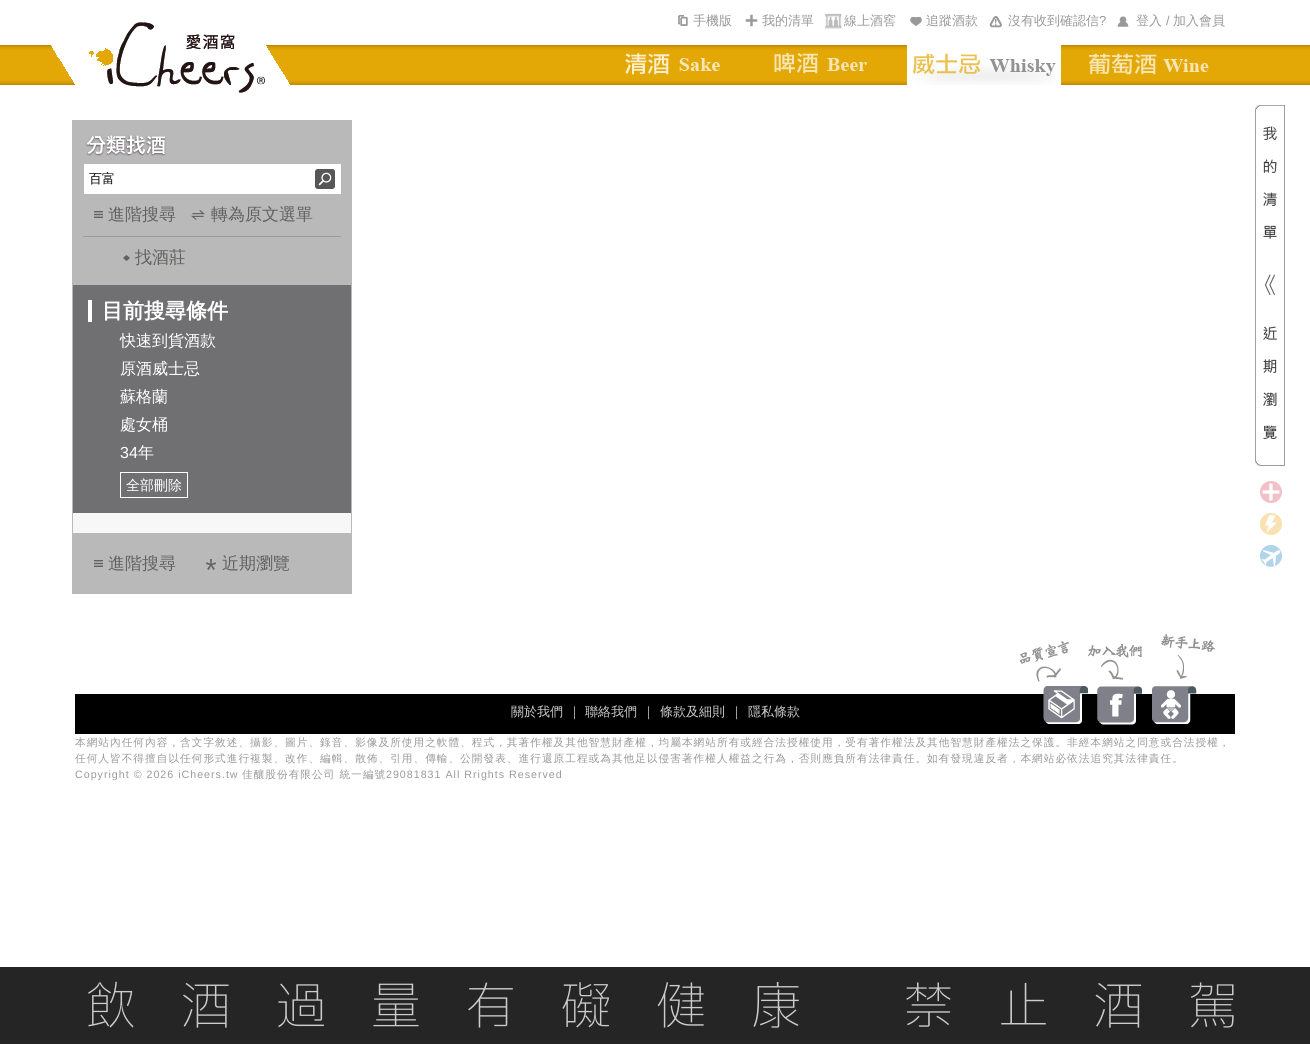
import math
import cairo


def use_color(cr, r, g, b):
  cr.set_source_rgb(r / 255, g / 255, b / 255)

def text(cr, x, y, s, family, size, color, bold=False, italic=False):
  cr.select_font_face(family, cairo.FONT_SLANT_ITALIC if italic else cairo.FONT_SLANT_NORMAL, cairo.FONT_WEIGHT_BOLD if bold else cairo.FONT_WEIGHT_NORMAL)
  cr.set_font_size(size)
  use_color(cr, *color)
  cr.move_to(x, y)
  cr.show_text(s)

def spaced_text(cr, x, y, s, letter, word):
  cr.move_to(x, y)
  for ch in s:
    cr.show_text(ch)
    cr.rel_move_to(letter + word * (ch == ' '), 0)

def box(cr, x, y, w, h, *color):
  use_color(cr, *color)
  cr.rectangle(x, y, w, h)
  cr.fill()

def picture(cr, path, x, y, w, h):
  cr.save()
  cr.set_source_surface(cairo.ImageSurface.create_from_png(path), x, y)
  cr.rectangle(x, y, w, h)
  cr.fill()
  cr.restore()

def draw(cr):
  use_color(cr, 255, 255, 255)
  cr.paint()
  picture(cr, "img_01.png", 678, 15, 10, 11)
  picture(cr, "img_02.png", 745, 14, 13, 13)
  picture(cr, "img_03.png", 824, 13, 18, 16)
  picture(cr, "img_04.png", 910, 16, 12, 10)
  picture(cr, "img_05.png", 989, 16, 13, 12)
  picture(cr, "img_06.png", 1117, 16, 12, 11)
  picture(cr, "img_07.png", 0, 45, 1310, 40)
  picture(cr, "img_08.png", 51, 22, 239, 71)
  picture(cr, "img_09.png", 625, 53, 95, 22)
  picture(cr, "img_10.png", 774, 52, 93, 22)
  picture(cr, "img_11.png", 907, 45, 154, 40)
  picture(cr, "img_12.png", 913, 53, 143, 23)
  picture(cr, "img_13.png", 1089, 53, 120, 22)
  box(cr, 73, 513, 278, 20, 247, 247, 247)
  cr.rectangle(72.5, 120.5, 279, 473)
  use_color(cr, 185, 185, 185)
  cr.set_line_width(1)
  cr.stroke()
  box(cr, 73, 121, 278, 164, 185, 185, 185)
  picture(cr, "img_14.png", 85, 135, 82, 21)
  box(cr, 84, 164, 257, 30, 255, 255, 255)
  picture(cr, "img_15.png", 315, 169, 20, 20)
  picture(cr, "img_16.png", 94, 211, 9, 7)
  picture(cr, "img_17.png", 191, 210, 14, 10)
  box(cr, 83, 236, 258, 1, 153, 153, 153)
  picture(cr, "img_18.png", 123, 255, 7, 6)
  box(cr, 73, 285, 278, 228, 112, 112, 115)
  box(cr, 88, 300, 4, 22, 255, 255, 255)
  cr.rectangle(120.5, 472.5, 67, 25)
  cr.stroke()
  box(cr, 73, 533, 278, 60, 185, 185, 185)
  picture(cr, "img_16.png", 94, 560, 9, 7)
  picture(cr, "img_19.png", 206, 559, 10, 11)
  picture(cr, "img_20.png", 1255, 105, 30, 361)
  picture(cr, "img_21.png", 1260, 481, 22, 22)
  picture(cr, "img_22.png", 1260, 513, 22, 22)
  picture(cr, "img_23.png", 1260, 545, 22, 22)
  box(cr, 75, 694, 1160, 40, 0, 0, 0)
  picture(cr, "img_24.png", 1020, 641, 68, 83)
  picture(cr, "img_25.png", 1088, 644, 54, 81)
  picture(cr, "img_26.png", 1152, 634, 63, 90)
  box(cr, 0, 967, 1310, 77, 37, 37, 37)
  text(cr, 693, 25, "手機版", "WenQuanYi Zen Hei Medium", 13, (153, 153, 153))
  text(cr, 762, 25, "我的清單", "WenQuanYi Zen Hei Medium", 13, (153, 153, 153))
  text(cr, 844, 25, "線上酒窖", "WenQuanYi Zen Hei Medium", 13, (153, 153, 153))
  text(cr, 926, 25, "追蹤酒款", "WenQuanYi Zen Hei Medium", 13, (153, 153, 153))
  text(cr, 1008, 25, "沒有收到確認信", "WenQuanYi Zen Hei Medium", 13, (153, 153, 153))
  text(cr, 1099, 25, "?", "Liberation Sans", 13, (153, 153, 153))
  text(cr, 1136, 25, "登入", "WenQuanYi Zen Hei Medium", 13, (153, 153, 153))
  text(cr, 1166, 25, "/", "Liberation Sans", 13, (153, 153, 153))
  text(cr, 1173, 25, "加入會員", "WenQuanYi Zen Hei Medium", 13, (153, 153, 153))
  text(cr, 89, 183, "百富", "WenQuanYi Zen Hei Medium", 13, (0, 0, 0))
  text(cr, 108, 220, "進階搜尋", "WenQuanYi Zen Hei Medium", 17, (97, 97, 96))
  text(cr, 211, 220, "轉為原文選單", "WenQuanYi Zen Hei Medium", 17, (97, 97, 96))
  text(cr, 135, 263, "找酒莊", "WenQuanYi Zen Hei Medium", 17, (97, 97, 96))
  text(cr, 102, 318, "目前搜尋條件", "WenQuanYi Zen Hei", 21, (255, 255, 255), bold=True)
  text(cr, 120, 346, "快速到貨酒款", "WenQuanYi Zen Hei Medium", 16, (255, 255, 255))
  text(cr, 120, 374, "原酒威士忌", "WenQuanYi Zen Hei Medium", 16, (255, 255, 255))
  text(cr, 120, 402, "蘇格蘭", "WenQuanYi Zen Hei Medium", 16, (255, 255, 255))
  text(cr, 120, 430, "處女桶", "WenQuanYi Zen Hei Medium", 16, (255, 255, 255))
  text(cr, 120, 458, "34", "Liberation Sans", 16, (255, 255, 255))
  text(cr, 138, 458, "年", "WenQuanYi Zen Hei Medium", 16, (255, 255, 255))
  text(cr, 126, 490, "全部刪除", "WenQuanYi Zen Hei Medium", 14, (255, 255, 255))
  text(cr, 108, 569, "進階搜尋", "WenQuanYi Zen Hei Medium", 17, (97, 97, 96))
  text(cr, 222, 569, "近期瀏覽", "WenQuanYi Zen Hei Medium", 17, (97, 97, 96))
  text(cr, 511, 716, "關於我們", "WenQuanYi Zen Hei Medium", 13, (204, 204, 204))
  text(cr, 568, 716, "｜", "WenQuanYi Zen Hei Medium", 13, (204, 204, 204))
  text(cr, 585, 716, "聯絡我們", "WenQuanYi Zen Hei Medium", 13, (204, 204, 204))
  text(cr, 642, 716, "｜", "WenQuanYi Zen Hei Medium", 13, (204, 204, 204))
  text(cr, 660, 716, "條款及細則", "WenQuanYi Zen Hei Medium", 13, (204, 204, 204))
  text(cr, 730, 716, "｜", "WenQuanYi Zen Hei Medium", 13, (204, 204, 204))
  text(cr, 748, 716, "隱私條款", "WenQuanYi Zen Hei Medium", 13, (204, 204, 204))
  cr.set_font_size(10.67)
  use_color(cr, 153, 153, 153)
  spaced_text(cr, 75, 746, "本網站內任何內容，含文字敘述、攝影、圖片、錄音、影像及所使用之軟體、程式，其著作權及其他智慧財產權，均屬本網站所有或經合法授權使用，受有著作權法及其他智慧財產權法之保護。非經本網站之同意或合法授權，", 1, 0)
  spaced_text(cr, 75, 762, "任何人皆不得擅自以任何形式進行複製、改作、編輯、散佈、引用、傳輸、公開發表、進行還原工程或為其他足以侵害著作權人權益之行為，否則應負所有法律責任。如有發現違反者，本網站必依法追究其法律責任。", 1, 0)
  cr.select_font_face("Liberation Sans")
  spaced_text(cr, 75, 778, "Copyright © 2026 iCheers.tw", 1, 0)
  cr.select_font_face("WenQuanYi Zen Hei Medium")
  spaced_text(cr, 242, 778, "佳釀股份有限公司 統一編號", 1, 0)
  cr.select_font_face("Liberation Sans")
  spaced_text(cr, 386, 778, "29081831 All Rrights Reserved", 1, 0)
  cr.select_font_face("IBM Plex Sans JP ExtraLight")
  cr.set_font_size(50)
  use_color(cr, 204, 204, 204)
  spaced_text(cr, 86, 1024, "飲酒過量有礙健康 禁止酒駕", 45, 0)


surface = cairo.ImageSurface(cairo.FORMAT_RGB24, 1310, 1044)
cr = cairo.Context(surface)
options = cairo.FontOptions()
options.set_hint_metrics(cairo.HINT_METRICS_OFF)
options.set_hint_style(cairo.HINT_STYLE_NONE)
cr.set_font_options(options)
cr.set_miter_limit(4)
draw(cr)
surface.write_to_png("out.png")
